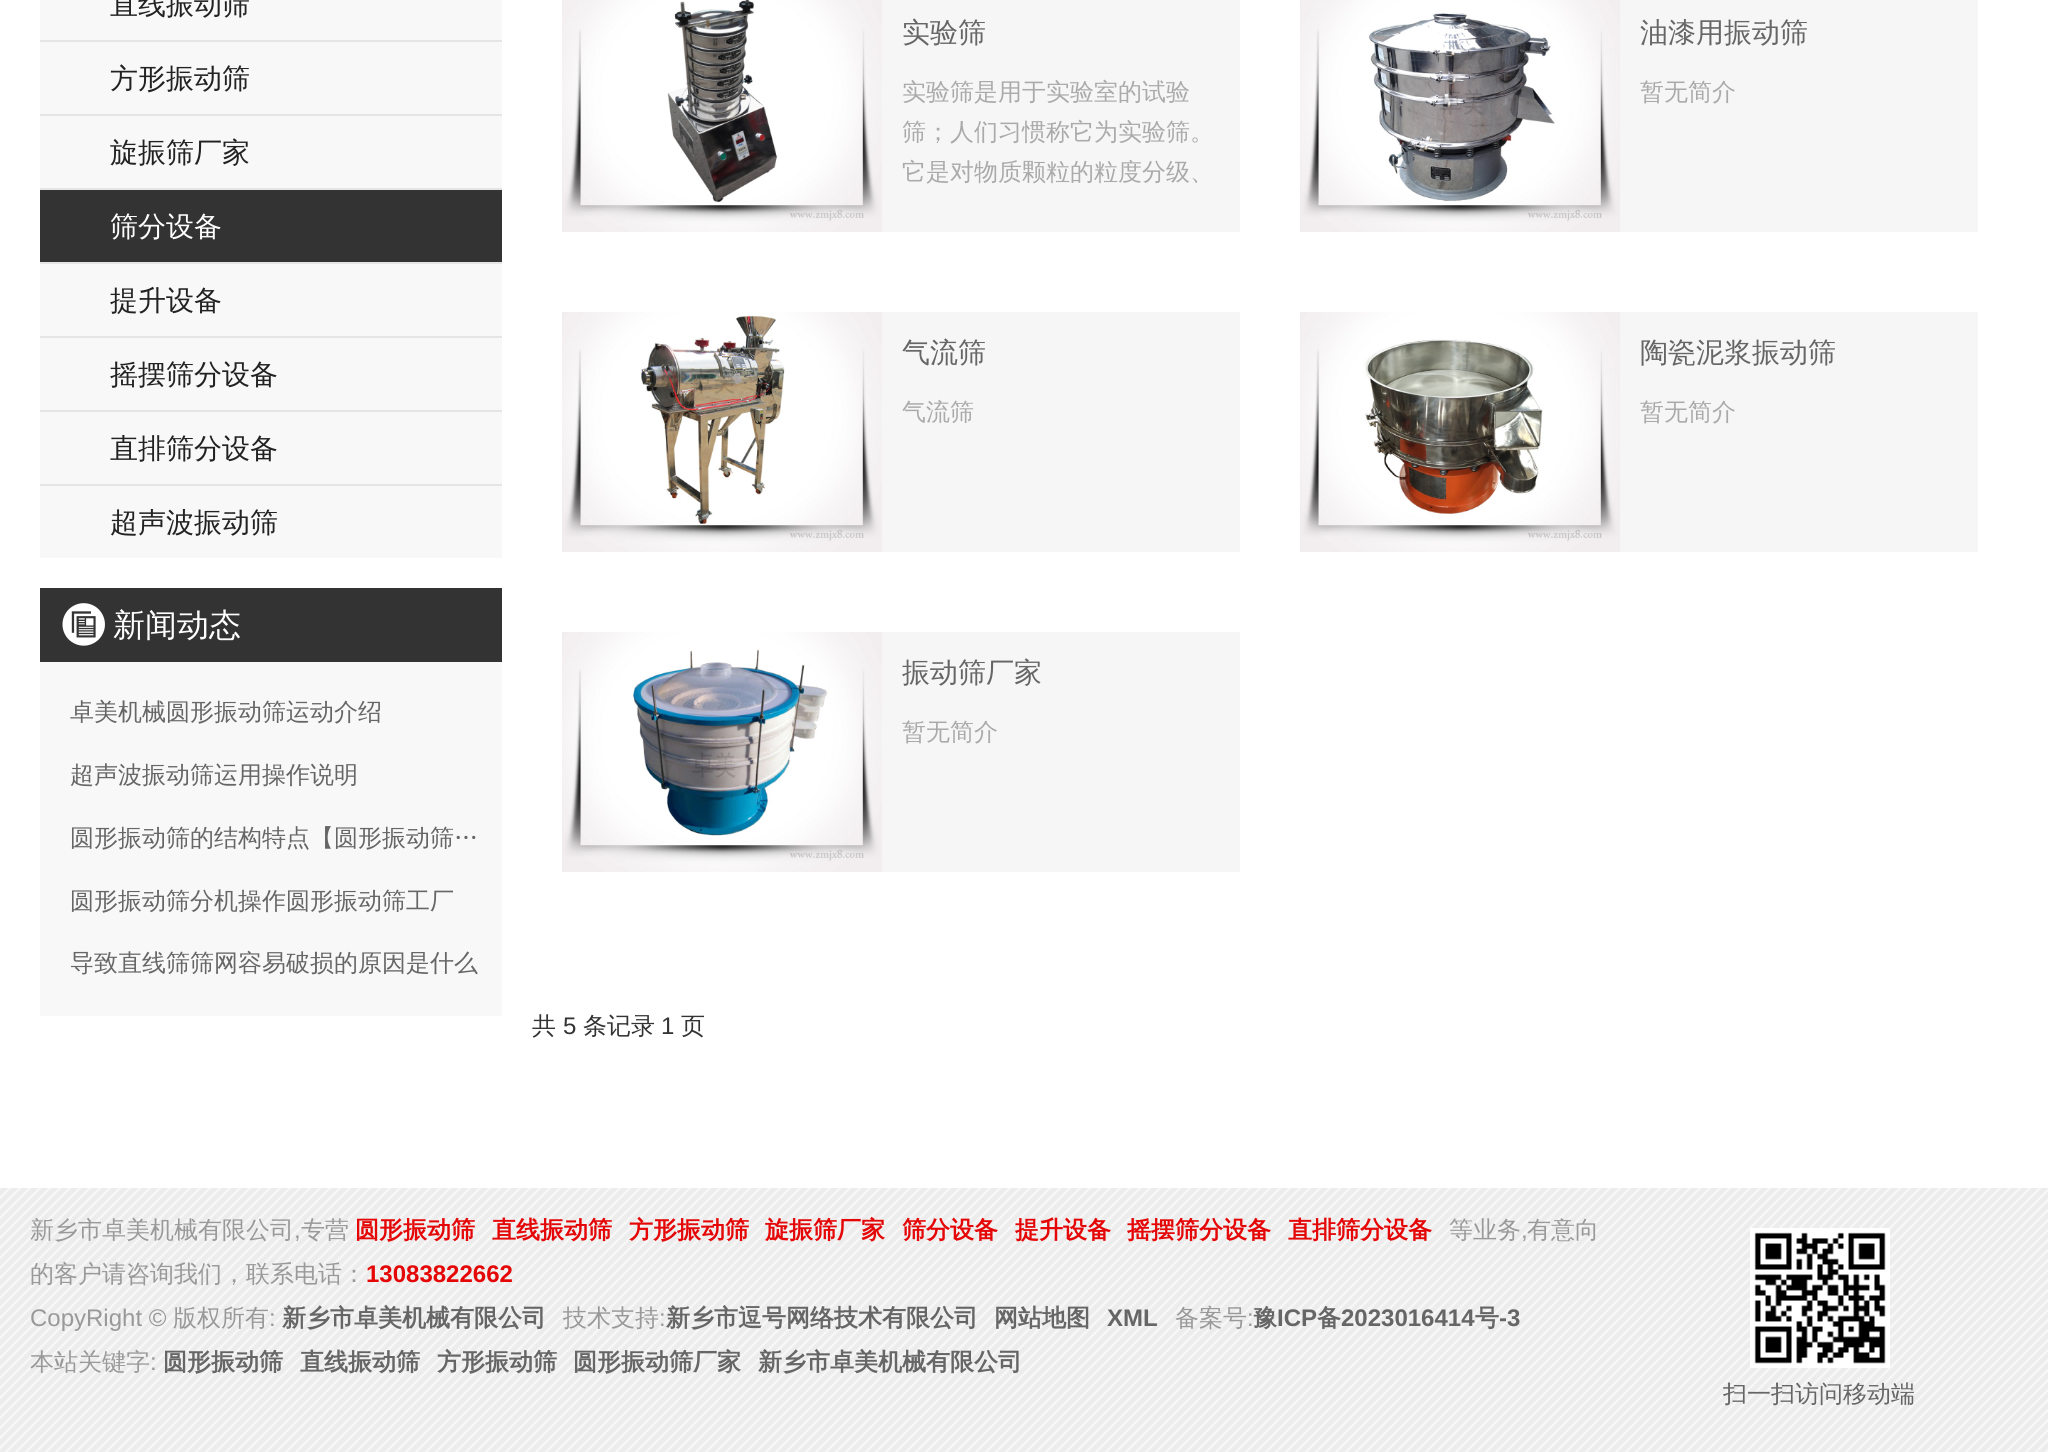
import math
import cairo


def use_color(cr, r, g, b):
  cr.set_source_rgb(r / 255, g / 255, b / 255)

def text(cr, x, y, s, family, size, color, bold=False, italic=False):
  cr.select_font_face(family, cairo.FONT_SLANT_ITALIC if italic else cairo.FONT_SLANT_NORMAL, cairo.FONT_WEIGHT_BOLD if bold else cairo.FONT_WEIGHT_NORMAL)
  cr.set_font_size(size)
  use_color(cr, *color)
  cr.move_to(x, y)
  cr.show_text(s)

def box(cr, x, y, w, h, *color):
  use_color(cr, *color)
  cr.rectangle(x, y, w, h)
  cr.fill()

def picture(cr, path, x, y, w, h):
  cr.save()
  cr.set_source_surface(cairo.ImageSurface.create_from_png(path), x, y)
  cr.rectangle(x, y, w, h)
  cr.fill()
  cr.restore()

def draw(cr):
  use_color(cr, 255, 255, 255)
  cr.paint()
  box(cr, 40, 0, 462, 40, 248, 248, 248)
  box(cr, 40, 40, 462, 2, 229, 229, 229)
  box(cr, 40, 42, 462, 72, 248, 248, 248)
  box(cr, 40, 114, 462, 2, 229, 229, 229)
  box(cr, 40, 116, 462, 72, 248, 248, 248)
  box(cr, 40, 188, 462, 2, 229, 229, 229)
  box(cr, 40, 262, 462, 2, 229, 229, 229)
  box(cr, 40, 190, 462, 72, 51, 51, 51)
  box(cr, 40, 264, 462, 72, 248, 248, 248)
  box(cr, 40, 336, 462, 2, 229, 229, 229)
  box(cr, 40, 338, 462, 72, 248, 248, 248)
  box(cr, 40, 410, 462, 2, 229, 229, 229)
  box(cr, 40, 412, 462, 72, 248, 248, 248)
  box(cr, 40, 484, 462, 2, 229, 229, 229)
  box(cr, 40, 486, 462, 72, 248, 248, 248)
  box(cr, 40, 588, 462, 74, 51, 51, 51)
  picture(cr, "img_01.png", 62, 603, 43, 43)
  box(cr, 40, 662, 462, 354, 248, 248, 248)
  box(cr, 882, 0, 358, 232, 246, 246, 246)
  picture(cr, "img_02.png", 562, 0, 320, 232)
  box(cr, 1620, 0, 358, 232, 246, 246, 246)
  picture(cr, "img_03.png", 1300, 0, 320, 232)
  box(cr, 882, 312, 358, 240, 246, 246, 246)
  picture(cr, "img_04.png", 562, 312, 320, 240)
  box(cr, 1620, 312, 358, 240, 246, 246, 246)
  picture(cr, "img_05.png", 1300, 312, 320, 240)
  box(cr, 882, 632, 358, 240, 246, 246, 246)
  picture(cr, "img_06.png", 562, 632, 320, 240)
  box(cr, 0, 1188, 2048, 264, 236, 236, 236)
  picture(cr, "img_07.png", 0, 1188, 2048, 264)
  picture(cr, "img_08.png", 1750, 1228, 140, 140)
  text(cr, 110, 14, "直线振动筛", "WenQuanYi Zen Hei Medium", 28, (34, 34, 34))
  text(cr, 110, 88, "方形振动筛", "WenQuanYi Zen Hei Medium", 28, (34, 34, 34))
  text(cr, 110, 162, "旋振筛厂家", "WenQuanYi Zen Hei Medium", 28, (34, 34, 34))
  text(cr, 110, 236, "筛分设备", "WenQuanYi Zen Hei Medium", 28, (255, 255, 255))
  text(cr, 110, 310, "提升设备", "WenQuanYi Zen Hei Medium", 28, (34, 34, 34))
  text(cr, 110, 384, "摇摆筛分设备", "WenQuanYi Zen Hei Medium", 28, (34, 34, 34))
  text(cr, 110, 458, "直排筛分设备", "WenQuanYi Zen Hei Medium", 28, (34, 34, 34))
  text(cr, 110, 532, "超声波振动筛", "WenQuanYi Zen Hei Medium", 28, (34, 34, 34))
  text(cr, 113, 636, "新闻动态", "WenQuanYi Zen Hei Medium", 32, (255, 255, 255))
  text(cr, 70, 720, "卓美机械圆形振动筛运动介绍", "WenQuanYi Zen Hei Medium", 24, (102, 102, 102))
  text(cr, 70, 783, "超声波振动筛运用操作说明", "WenQuanYi Zen Hei Medium", 24, (102, 102, 102))
  text(cr, 70, 846, "圆形振动筛的结构特点【圆形振动筛…", "WenQuanYi Zen Hei Medium", 24, (102, 102, 102))
  text(cr, 70, 909, "圆形振动筛分机操作圆形振动筛工厂", "WenQuanYi Zen Hei Medium", 24, (102, 102, 102))
  text(cr, 70, 971, "导致直线筛筛网容易破损的原因是什么", "WenQuanYi Zen Hei Medium", 24, (102, 102, 102))
  text(cr, 902, 42, "实验筛", "WenQuanYi Zen Hei Medium", 28, (102, 102, 102))
  text(cr, 902, 100, "实验筛是用于实验室的试验", "WenQuanYi Zen Hei Medium", 24, (170, 170, 170))
  text(cr, 902, 140, "筛；人们习惯称它为实验筛。", "WenQuanYi Zen Hei Medium", 24, (170, 170, 170))
  text(cr, 902, 180, "它是对物质颗粒的粒度分级、", "WenQuanYi Zen Hei Medium", 24, (170, 170, 170))
  text(cr, 1640, 42, "油漆用振动筛", "WenQuanYi Zen Hei Medium", 28, (102, 102, 102))
  text(cr, 1640, 100, "暂无简介", "WenQuanYi Zen Hei Medium", 24, (170, 170, 170))
  text(cr, 902, 362, "气流筛", "WenQuanYi Zen Hei Medium", 28, (102, 102, 102))
  text(cr, 902, 420, "气流筛", "WenQuanYi Zen Hei Medium", 24, (170, 170, 170))
  text(cr, 1640, 362, "陶瓷泥浆振动筛", "WenQuanYi Zen Hei Medium", 28, (102, 102, 102))
  text(cr, 1640, 420, "暂无简介", "WenQuanYi Zen Hei Medium", 24, (170, 170, 170))
  text(cr, 902, 682, "振动筛厂家", "WenQuanYi Zen Hei Medium", 28, (102, 102, 102))
  text(cr, 902, 740, "暂无简介", "WenQuanYi Zen Hei Medium", 24, (170, 170, 170))
  text(cr, 532, 1034, "共", "WenQuanYi Zen Hei Medium", 24, (51, 51, 51))
  text(cr, 563, 1034, "5", "Liberation Sans", 24, (51, 51, 51))
  text(cr, 583, 1034, "条记录", "WenQuanYi Zen Hei Medium", 24, (51, 51, 51))
  text(cr, 661, 1034, "1", "Liberation Sans", 24, (51, 51, 51))
  text(cr, 681, 1034, "页", "WenQuanYi Zen Hei Medium", 24, (51, 51, 51))
  text(cr, 30, 1238, "新乡市卓美机械有限公司", "WenQuanYi Zen Hei Medium", 24, (153, 153, 153))
  text(cr, 294, 1238, ",", "Liberation Sans", 24, (153, 153, 153))
  text(cr, 301, 1238, "专营", "WenQuanYi Zen Hei Medium", 24, (153, 153, 153))
  text(cr, 355, 1238, "圆形振动筛", "WenQuanYi Zen Hei", 24, (229, 7, 7), bold=True)
  text(cr, 492, 1238, "直线振动筛", "WenQuanYi Zen Hei", 24, (229, 7, 7), bold=True)
  text(cr, 629, 1238, "方形振动筛", "WenQuanYi Zen Hei", 24, (229, 7, 7), bold=True)
  text(cr, 765, 1238, "旋振筛厂家", "WenQuanYi Zen Hei", 24, (229, 7, 7), bold=True)
  text(cr, 902, 1238, "筛分设备", "WenQuanYi Zen Hei", 24, (229, 7, 7), bold=True)
  text(cr, 1015, 1238, "提升设备", "WenQuanYi Zen Hei", 24, (229, 7, 7), bold=True)
  text(cr, 1127, 1238, "摇摆筛分设备", "WenQuanYi Zen Hei", 24, (229, 7, 7), bold=True)
  text(cr, 1288, 1238, "直排筛分设备", "WenQuanYi Zen Hei", 24, (229, 7, 7), bold=True)
  text(cr, 1449, 1238, "等业务", "WenQuanYi Zen Hei Medium", 24, (153, 153, 153))
  text(cr, 1521, 1238, ",", "Liberation Sans", 24, (153, 153, 153))
  text(cr, 1527, 1238, "有意向", "WenQuanYi Zen Hei Medium", 24, (153, 153, 153))
  text(cr, 30, 1282, "的客户请咨询我们，联系电话：", "WenQuanYi Zen Hei Medium", 24, (153, 153, 153))
  text(cr, 366, 1282, "13083822662", "Liberation Sans", 24, (229, 7, 7), bold=True)
  text(cr, 30, 1326, "CopyRight ©", "Liberation Sans", 24, (153, 153, 153))
  text(cr, 173, 1326, "版权所有", "WenQuanYi Zen Hei Medium", 24, (153, 153, 153))
  text(cr, 269, 1326, ":", "Liberation Sans", 24, (153, 153, 153))
  text(cr, 282, 1326, "新乡市卓美机械有限公司", "WenQuanYi Zen Hei", 24, (102, 102, 102), bold=True)
  text(cr, 563, 1326, "技术支持", "WenQuanYi Zen Hei Medium", 24, (153, 153, 153))
  text(cr, 659, 1326, ":", "Liberation Sans", 24, (153, 153, 153))
  text(cr, 666, 1326, "新乡市逗号网络技术有限公司", "WenQuanYi Zen Hei", 24, (102, 102, 102), bold=True)
  text(cr, 994, 1326, "网站地图", "WenQuanYi Zen Hei", 24, (102, 102, 102), bold=True)
  text(cr, 1107, 1326, "XML", "Liberation Sans", 24, (102, 102, 102), bold=True)
  text(cr, 1175, 1326, "备案号", "WenQuanYi Zen Hei Medium", 24, (153, 153, 153))
  text(cr, 1247, 1326, ":", "Liberation Sans", 24, (153, 153, 153))
  text(cr, 1253, 1326, "豫", "WenQuanYi Zen Hei", 24, (102, 102, 102), bold=True)
  text(cr, 1277, 1326, "ICP", "Liberation Sans", 24, (102, 102, 102), bold=True)
  text(cr, 1317, 1326, "备", "WenQuanYi Zen Hei", 24, (102, 102, 102), bold=True)
  text(cr, 1341, 1326, "2023016414", "Liberation Sans", 24, (102, 102, 102), bold=True)
  text(cr, 1475, 1326, "号", "WenQuanYi Zen Hei", 24, (102, 102, 102), bold=True)
  text(cr, 1499, 1326, "-3", "Liberation Sans", 24, (102, 102, 102), bold=True)
  text(cr, 30, 1370, "本站关键字", "WenQuanYi Zen Hei Medium", 24, (153, 153, 153))
  text(cr, 150, 1370, ":", "Liberation Sans", 24, (153, 153, 153))
  text(cr, 163, 1370, "圆形振动筛", "WenQuanYi Zen Hei", 24, (102, 102, 102), bold=True)
  text(cr, 300, 1370, "直线振动筛", "WenQuanYi Zen Hei", 24, (102, 102, 102), bold=True)
  text(cr, 437, 1370, "方形振动筛", "WenQuanYi Zen Hei", 24, (102, 102, 102), bold=True)
  text(cr, 573, 1370, "圆形振动筛厂家", "WenQuanYi Zen Hei", 24, (102, 102, 102), bold=True)
  text(cr, 758, 1370, "新乡市卓美机械有限公司", "WenQuanYi Zen Hei", 24, (102, 102, 102), bold=True)
  text(cr, 1723, 1402, "扫一扫访问移动端", "WenQuanYi Zen Hei Medium", 24, (102, 102, 102))


surface = cairo.ImageSurface(cairo.FORMAT_RGB24, 2048, 1452)
cr = cairo.Context(surface)
options = cairo.FontOptions()
options.set_hint_metrics(cairo.HINT_METRICS_OFF)
options.set_hint_style(cairo.HINT_STYLE_NONE)
cr.set_font_options(options)
cr.set_miter_limit(4)
draw(cr)
surface.write_to_png("out.png")
